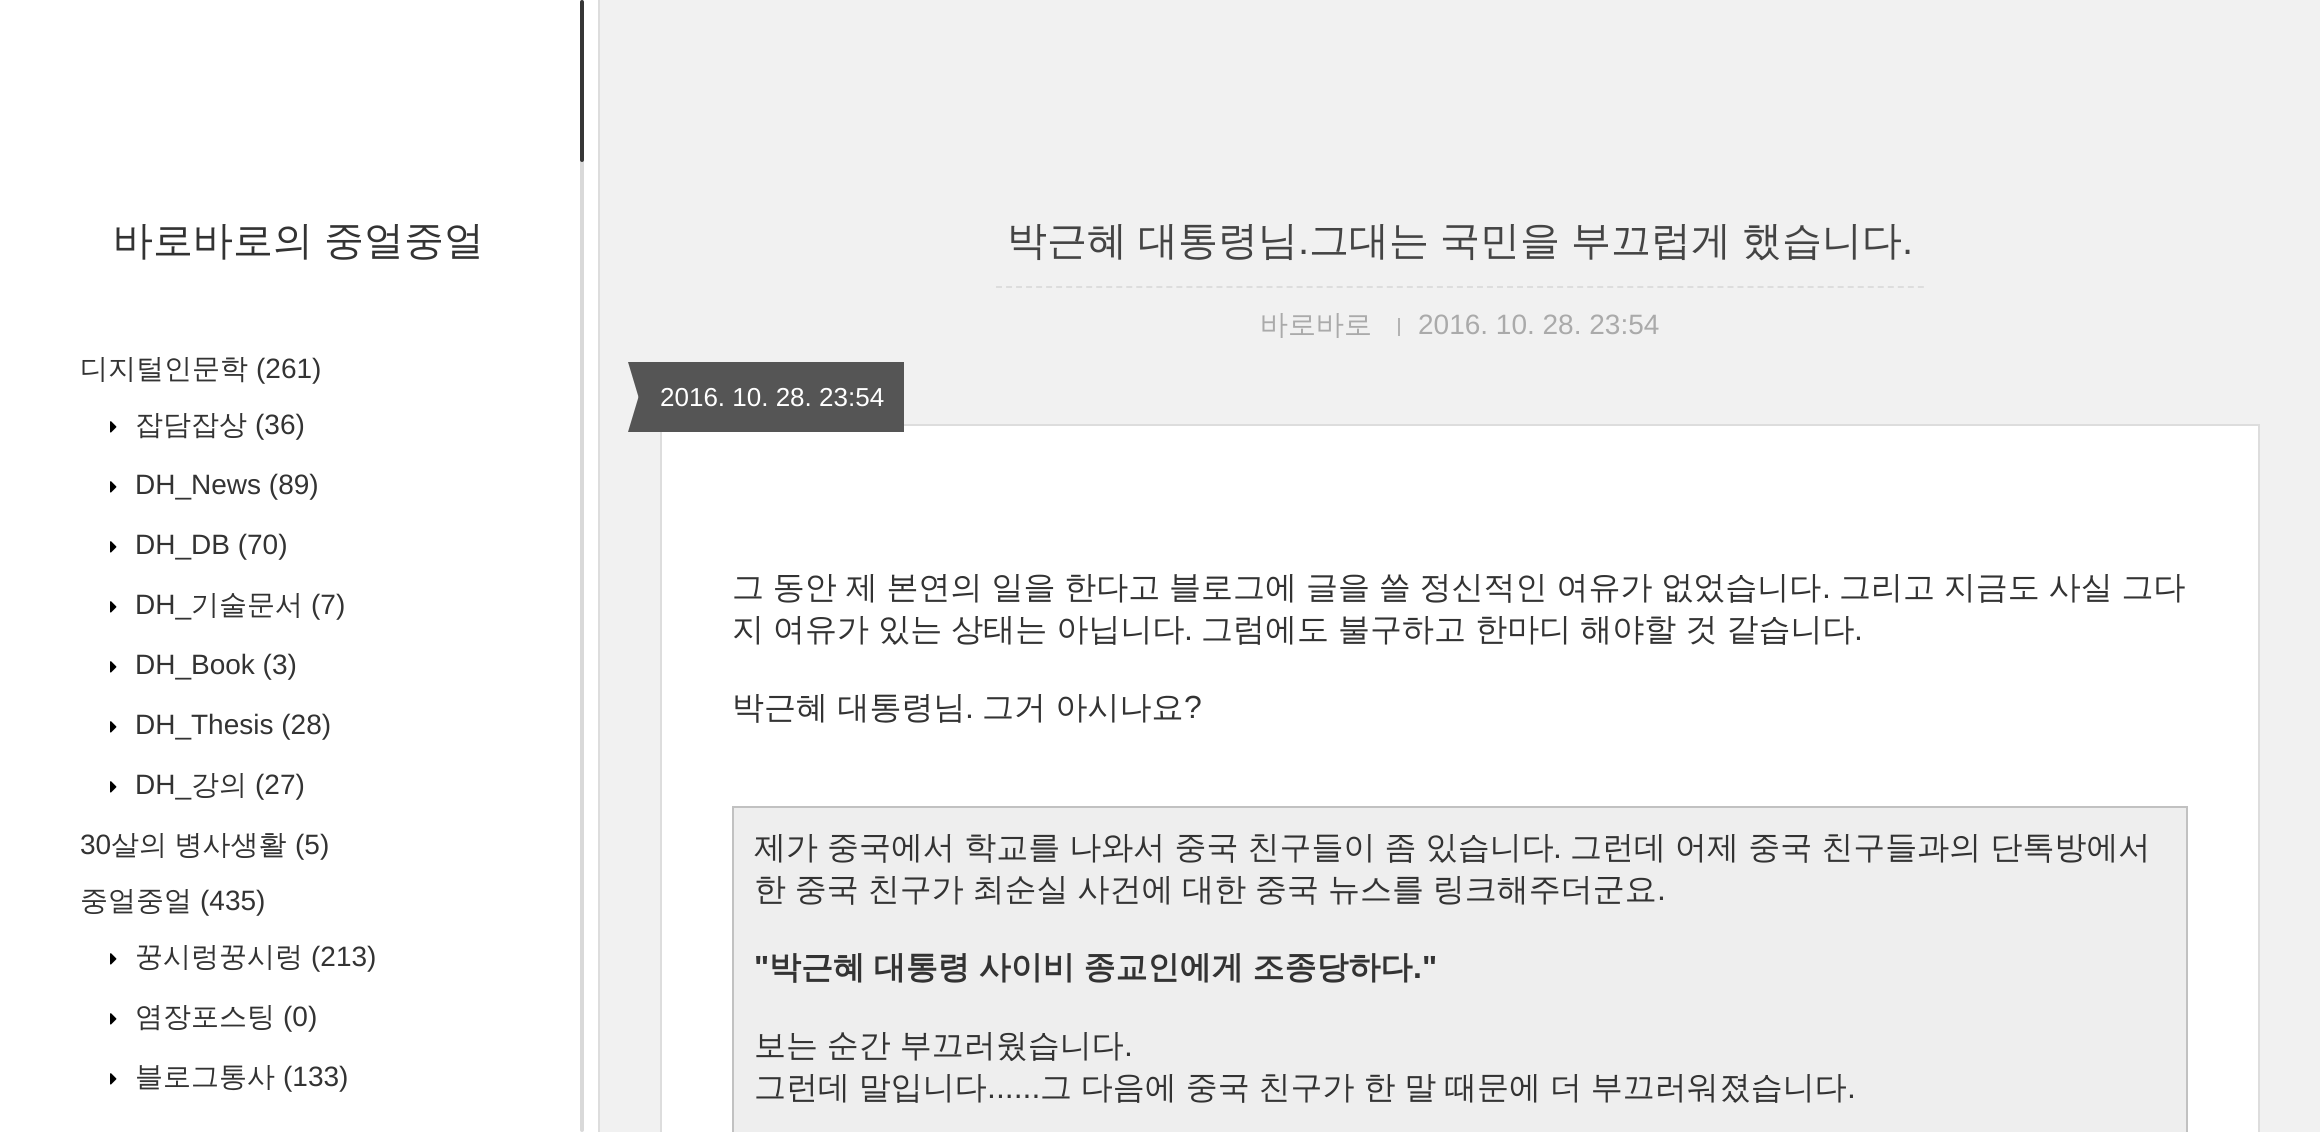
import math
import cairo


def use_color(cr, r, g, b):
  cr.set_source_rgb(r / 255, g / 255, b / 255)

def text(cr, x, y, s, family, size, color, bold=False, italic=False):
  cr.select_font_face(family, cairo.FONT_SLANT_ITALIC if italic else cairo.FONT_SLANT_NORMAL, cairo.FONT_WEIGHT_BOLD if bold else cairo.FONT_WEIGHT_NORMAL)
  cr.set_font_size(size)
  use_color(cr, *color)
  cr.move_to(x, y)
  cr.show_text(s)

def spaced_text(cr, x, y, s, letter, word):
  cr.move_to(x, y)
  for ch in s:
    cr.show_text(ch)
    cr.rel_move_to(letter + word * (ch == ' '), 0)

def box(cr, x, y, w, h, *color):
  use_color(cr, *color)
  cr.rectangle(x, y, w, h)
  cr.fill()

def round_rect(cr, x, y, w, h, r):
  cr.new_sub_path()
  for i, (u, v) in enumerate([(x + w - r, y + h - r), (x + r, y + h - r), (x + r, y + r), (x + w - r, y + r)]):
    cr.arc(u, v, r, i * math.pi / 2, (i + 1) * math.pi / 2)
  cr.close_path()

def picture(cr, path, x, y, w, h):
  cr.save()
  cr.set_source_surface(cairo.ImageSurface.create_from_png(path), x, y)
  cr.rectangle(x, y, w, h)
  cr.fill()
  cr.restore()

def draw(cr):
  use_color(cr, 241, 241, 241)
  cr.paint()
  box(cr, 0, 0, 598, 1132, 255, 255, 255)
  box(cr, 598, 0, 2, 1132, 221, 221, 221)
  picture(cr, "img_01.png", 110, 421, 7, 12)
  picture(cr, "img_01.png", 110, 481, 7, 12)
  picture(cr, "img_01.png", 110, 541, 7, 12)
  picture(cr, "img_01.png", 110, 601, 7, 12)
  picture(cr, "img_01.png", 110, 661, 7, 12)
  picture(cr, "img_01.png", 110, 721, 7, 12)
  picture(cr, "img_01.png", 110, 781, 7, 12)
  picture(cr, "img_01.png", 110, 953, 7, 12)
  picture(cr, "img_01.png", 110, 1013, 7, 12)
  picture(cr, "img_01.png", 110, 1073, 7, 12)
  use_color(cr, 217, 217, 217)
  round_rect(cr, 580, 0, 4, 1132, 2)
  cr.fill()
  cr.set_source_rgba(0, 0, 0, 0.75)
  round_rect(cr, 580, 0, 4, 162, 2)
  cr.fill()
  cr.new_path()
  cr.move_to(996, 287)
  cr.line_to(1924, 287)
  use_color(cr, 221, 221, 221)
  cr.set_dash([6, 4.02])
  cr.stroke()
  box(cr, 1398, 318, 2, 18, 179, 179, 179)
  use_color(cr, 255, 255, 255)
  cr.rectangle(661, 425, 1598, 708)
  cr.fill_preserve()
  use_color(cr, 221, 221, 221)
  cr.set_dash([])
  cr.stroke()
  box(cr, 640, 362, 264, 70, 85, 85, 85)
  cr.new_path()
  cr.move_to(628, 362)
  cr.line_to(640, 362)
  cr.line_to(640, 402)
  cr.close_path()
  cr.fill()
  cr.new_path()
  cr.move_to(640, 432)
  cr.line_to(628, 432)
  cr.line_to(640, 392)
  cr.close_path()
  cr.fill()
  use_color(cr, 238, 238, 238)
  cr.rectangle(733, 807, 1454, 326)
  cr.fill_preserve()
  use_color(cr, 193, 193, 193)
  cr.stroke()
  cr.select_font_face("WenQuanYi Zen Hei Medium")
  cr.set_font_size(40)
  use_color(cr, 51, 51, 51)
  spaced_text(cr, 113, 254, "바로바로의 중얼중얼", 0, -1)
  text(cr, 80, 378, "디지털인문학", "WenQuanYi Zen Hei Medium", 28, (51, 51, 51))
  text(cr, 256, 378, "(261)", "Liberation Sans", 28, (51, 51, 51))
  text(cr, 135, 434, "잡담잡상", "WenQuanYi Zen Hei Medium", 28, (51, 51, 51))
  text(cr, 255, 434, "(36)", "Liberation Sans", 28, (51, 51, 51))
  text(cr, 135, 494, "DH_News (89)", "Liberation Sans", 28, (51, 51, 51))
  text(cr, 135, 554, "DH_DB (70)", "Liberation Sans", 28, (51, 51, 51))
  text(cr, 135, 614, "DH_", "Liberation Sans", 28, (51, 51, 51))
  text(cr, 191, 614, "기술문서", "WenQuanYi Zen Hei Medium", 28, (51, 51, 51))
  text(cr, 311, 614, "(7)", "Liberation Sans", 28, (51, 51, 51))
  text(cr, 135, 674, "DH_Book (3)", "Liberation Sans", 28, (51, 51, 51))
  text(cr, 135, 734, "DH_Thesis (28)", "Liberation Sans", 28, (51, 51, 51))
  text(cr, 135, 794, "DH_", "Liberation Sans", 28, (51, 51, 51))
  text(cr, 191, 794, "강의", "WenQuanYi Zen Hei Medium", 28, (51, 51, 51))
  text(cr, 255, 794, "(27)", "Liberation Sans", 28, (51, 51, 51))
  text(cr, 80, 854, "30", "Liberation Sans", 28, (51, 51, 51))
  cr.select_font_face("WenQuanYi Zen Hei Medium")
  spaced_text(cr, 111, 854, "살의 병사생활", 0, -1)
  text(cr, 295, 854, "(5)", "Liberation Sans", 28, (51, 51, 51))
  text(cr, 80, 910, "중얼중얼", "WenQuanYi Zen Hei Medium", 28, (51, 51, 51))
  text(cr, 200, 910, "(435)", "Liberation Sans", 28, (51, 51, 51))
  text(cr, 135, 966, "꿍시렁꿍시렁", "WenQuanYi Zen Hei Medium", 28, (51, 51, 51))
  text(cr, 311, 966, "(213)", "Liberation Sans", 28, (51, 51, 51))
  text(cr, 135, 1026, "염장포스팅", "WenQuanYi Zen Hei Medium", 28, (51, 51, 51))
  text(cr, 283, 1026, "(0)", "Liberation Sans", 28, (51, 51, 51))
  text(cr, 135, 1086, "블로그통사", "WenQuanYi Zen Hei Medium", 28, (51, 51, 51))
  text(cr, 283, 1086, "(133)", "Liberation Sans", 28, (51, 51, 51))
  cr.select_font_face("WenQuanYi Zen Hei Medium")
  cr.set_font_size(40)
  use_color(cr, 68, 68, 68)
  spaced_text(cr, 1007, 254, "박근혜 대통령님", 0, -1)
  text(cr, 1298, 254, ".", "Liberation Sans", 40, (68, 68, 68))
  cr.select_font_face("WenQuanYi Zen Hei Medium")
  spaced_text(cr, 1309, 254, "그대는 국민을 부끄럽게 했습니다", 0, -1)
  text(cr, 1902, 254, ".", "Liberation Sans", 40, (68, 68, 68))
  text(cr, 1260, 334, "바로바로", "WenQuanYi Zen Hei Medium", 28, (170, 170, 170))
  text(cr, 1418, 334, "2016. 10. 28. 23:54", "Liberation Sans", 28, (170, 170, 170))
  text(cr, 660, 406, "2016. 10. 28. 23:54", "Liberation Sans", 26, (255, 255, 255))
  cr.select_font_face("WenQuanYi Zen Hei Medium")
  cr.set_font_size(32)
  use_color(cr, 51, 51, 51)
  spaced_text(cr, 732, 598, "그 동안 제 본연의 일을 한다고 블로그에 글을 쓸 정신적인 여유가 없었습니다", 0, -0.75)
  text(cr, 1822, 598, ".", "Liberation Sans", 32, (51, 51, 51))
  cr.select_font_face("WenQuanYi Zen Hei Medium")
  spaced_text(cr, 1839, 598, "그리고 지금도 사실 그다", 0, -0.75)
  spaced_text(cr, 732, 640, "지 여유가 있는 상태는 아닙니다", 0, -0.5)
  text(cr, 1184, 640, ".", "Liberation Sans", 32, (51, 51, 51))
  cr.select_font_face("WenQuanYi Zen Hei Medium")
  spaced_text(cr, 1201, 640, "그럼에도 불구하고 한마디 해야할 것 같습니다", 0, -0.5)
  text(cr, 1854, 640, ".", "Liberation Sans", 32, (51, 51, 51))
  text(cr, 732, 718, "박근혜 대통령님", "WenQuanYi Zen Hei Medium", 32, (51, 51, 51))
  text(cr, 965, 718, ".", "Liberation Sans", 32, (51, 51, 51))
  text(cr, 982, 718, "그거 아시나요", "WenQuanYi Zen Hei Medium", 32, (51, 51, 51))
  text(cr, 1184, 718, "?", "Liberation Sans", 32, (51, 51, 51))
  cr.select_font_face("WenQuanYi Zen Hei Medium")
  spaced_text(cr, 754, 858, "제가 중국에서 학교를 나와서 중국 친구들이 좀 있습니다", 0, -0.5)
  text(cr, 1553, 858, ".", "Liberation Sans", 32, (51, 51, 51))
  cr.select_font_face("WenQuanYi Zen Hei Medium")
  spaced_text(cr, 1570, 858, "그런데 어제 중국 친구들과의 단톡방에서", 0, -0.5)
  spaced_text(cr, 754, 900, "한 중국 친구가 최순실 사건에 대한 중국 뉴스를 링크해주더군요", 0, -0.75)
  text(cr, 1657, 900, ".", "Liberation Sans", 32, (51, 51, 51))
  text(cr, 754, 978, "\"", "Liberation Sans", 32, (51, 51, 51), bold=True)
  cr.select_font_face("WenQuanYi Zen Hei", cairo.FONT_SLANT_NORMAL, cairo.FONT_WEIGHT_BOLD)
  spaced_text(cr, 769, 978, "박근혜 대통령 사이비 종교인에게 조종당하다", 0, -0.75)
  text(cr, 1413, 978, ".\"", "Liberation Sans", 32, (51, 51, 51), bold=True)
  cr.select_font_face("WenQuanYi Zen Hei Medium")
  spaced_text(cr, 754, 1056, "보는 순간 부끄러웠습니다", 0, -0.75)
  text(cr, 1124, 1056, ".", "Liberation Sans", 32, (51, 51, 51))
  cr.select_font_face("WenQuanYi Zen Hei Medium")
  spaced_text(cr, 754, 1098, "그런데 말입니다", 0, -0.75)
  text(cr, 987, 1098, "......", "Liberation Sans", 32, (51, 51, 51))
  cr.select_font_face("WenQuanYi Zen Hei Medium")
  spaced_text(cr, 1040, 1098, "그 다음에 중국 친구가 한 말 때문에 더 부끄러워졌습니다", 0, -0.75)
  text(cr, 1847, 1098, ".", "Liberation Sans", 32, (51, 51, 51))


surface = cairo.ImageSurface(cairo.FORMAT_RGB24, 2320, 1132)
cr = cairo.Context(surface)
options = cairo.FontOptions()
options.set_hint_metrics(cairo.HINT_METRICS_OFF)
options.set_hint_style(cairo.HINT_STYLE_NONE)
cr.set_font_options(options)
cr.set_miter_limit(4)
draw(cr)
surface.write_to_png("out.png")
